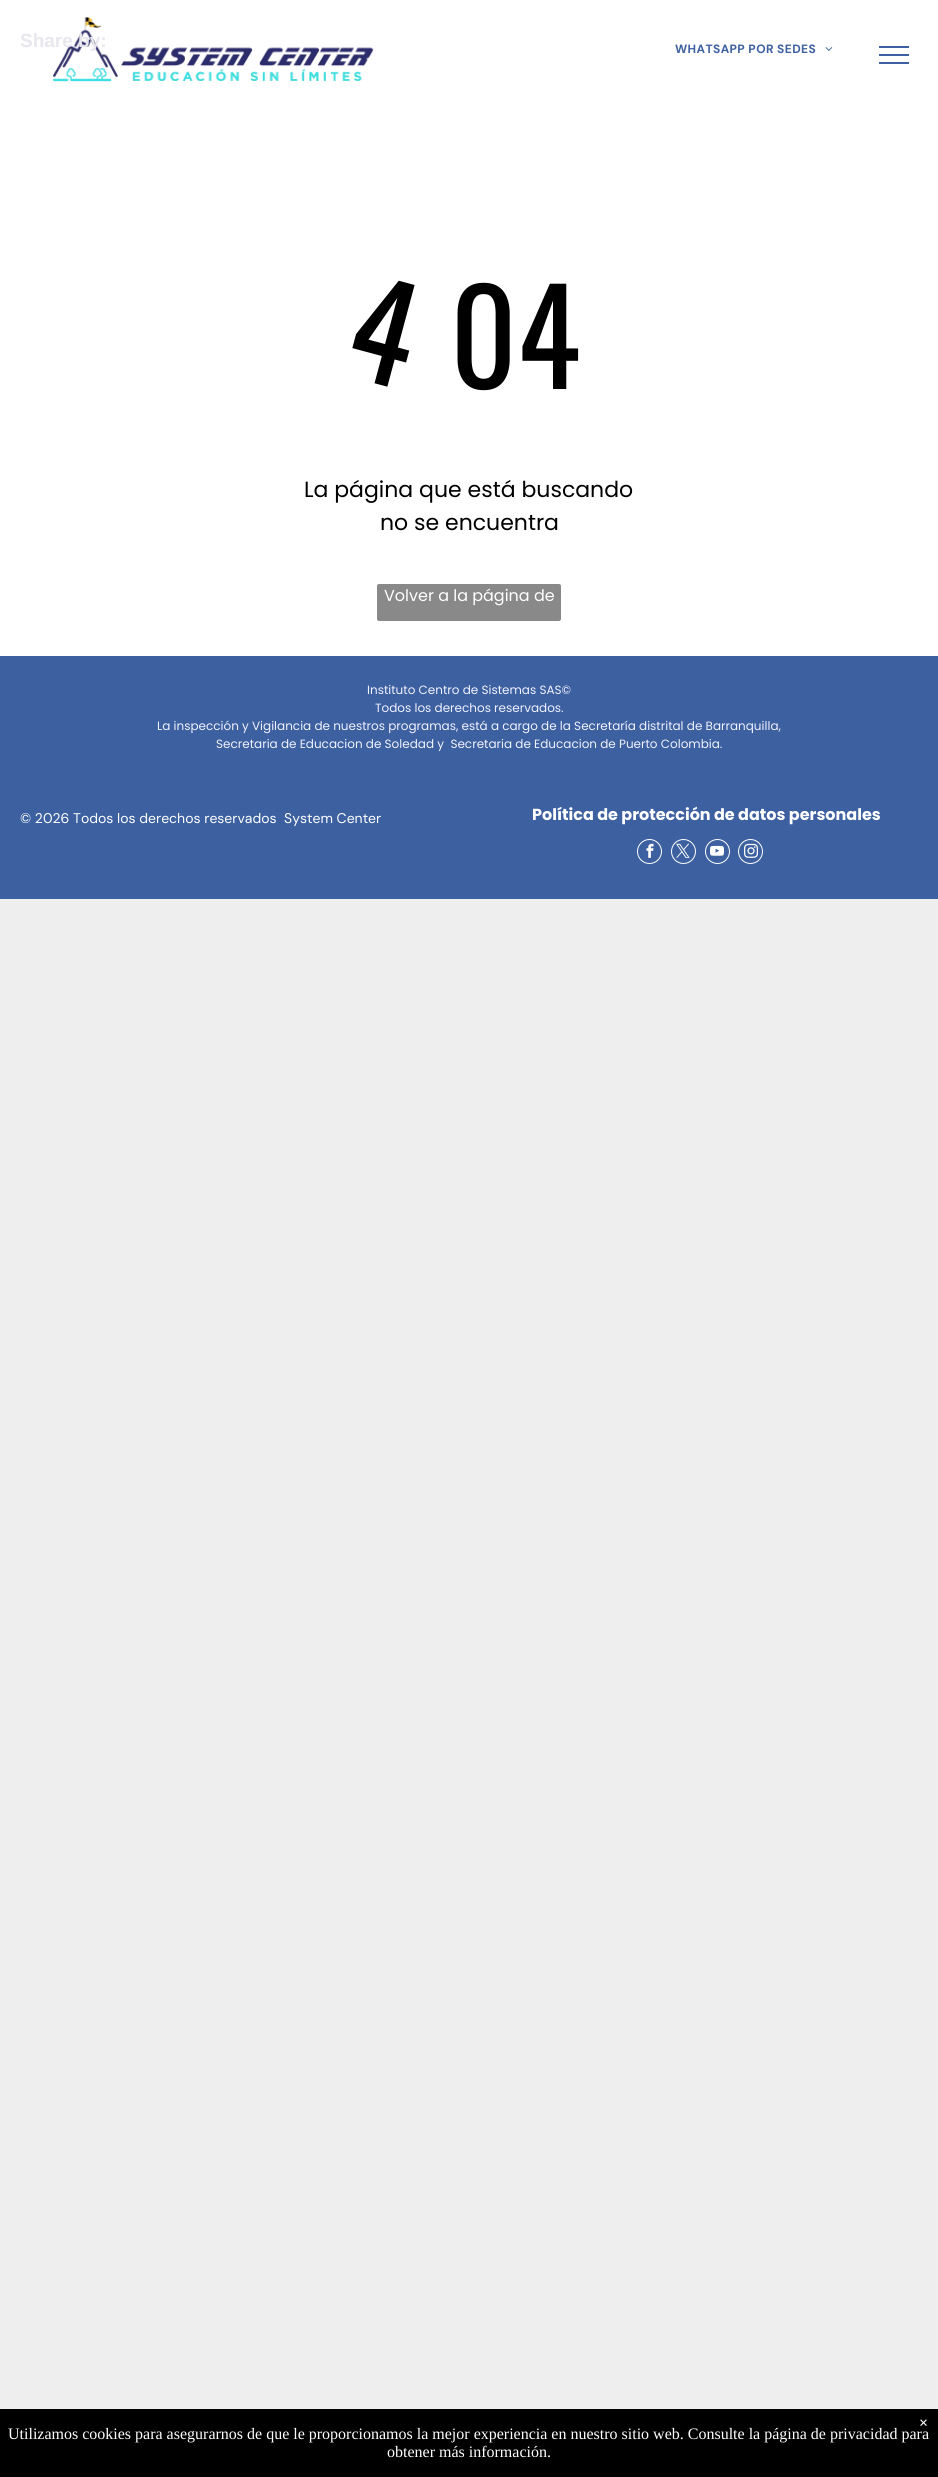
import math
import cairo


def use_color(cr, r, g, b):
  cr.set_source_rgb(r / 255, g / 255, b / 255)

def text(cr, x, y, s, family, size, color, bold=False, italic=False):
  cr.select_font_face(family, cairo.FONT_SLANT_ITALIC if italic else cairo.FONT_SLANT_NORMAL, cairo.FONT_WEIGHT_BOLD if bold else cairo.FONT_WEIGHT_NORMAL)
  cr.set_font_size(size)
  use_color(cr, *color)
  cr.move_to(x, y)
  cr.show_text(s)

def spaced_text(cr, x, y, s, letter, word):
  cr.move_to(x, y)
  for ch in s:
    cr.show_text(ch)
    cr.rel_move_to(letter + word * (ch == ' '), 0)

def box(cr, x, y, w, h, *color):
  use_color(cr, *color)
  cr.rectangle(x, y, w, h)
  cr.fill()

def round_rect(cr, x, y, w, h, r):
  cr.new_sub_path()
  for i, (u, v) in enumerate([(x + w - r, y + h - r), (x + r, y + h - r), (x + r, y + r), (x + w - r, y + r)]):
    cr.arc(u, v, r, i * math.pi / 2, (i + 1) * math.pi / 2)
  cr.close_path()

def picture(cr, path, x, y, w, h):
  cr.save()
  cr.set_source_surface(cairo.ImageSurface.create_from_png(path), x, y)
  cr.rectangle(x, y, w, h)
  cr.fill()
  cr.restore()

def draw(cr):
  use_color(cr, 238, 238, 238)
  cr.paint()
  box(cr, 0, 0, 938, 656, 255, 255, 255)
  picture(cr, "img_01.png", 53, 17, 321, 65)
  picture(cr, "img_02.png", 825, 47, 8, 4)
  box(cr, 879, 46, 30, 2, 60, 96, 160)
  box(cr, 879, 54, 30, 2, 60, 96, 160)
  box(cr, 879, 62, 30, 2, 60, 96, 160)
  use_color(cr, 137, 137, 137)
  round_rect(cr, 377, 584, 184, 37, 2)
  cr.fill()
  box(cr, 0, 656, 938, 243, 60, 96, 160)
  cr.arc(649.5, 851.5, 12, 0, 2 * math.pi)
  use_color(cr, 255, 255, 255)
  cr.set_line_width(1)
  cr.stroke()
  picture(cr, "img_03.png", 646, 843, 8, 15)
  cr.arc(683.5, 851.5, 12, 0, 2 * math.pi)
  cr.stroke()
  picture(cr, "img_04.png", 676, 843, 14, 15)
  cr.arc(717.5, 851.5, 12, 0, 2 * math.pi)
  cr.stroke()
  picture(cr, "img_05.png", 710, 845, 14, 11)
  cr.arc(750.5, 851.5, 12, 0, 2 * math.pi)
  cr.stroke()
  picture(cr, "img_06.png", 744, 843, 14, 15)
  box(cr, 0, 2409, 938, 68, 0, 0, 0)
  text(cr, 20, 47, "Share by:", "Liberation Sans", 19, (231, 231, 237), bold=True)
  cr.select_font_face("DM Sans", cairo.FONT_SLANT_NORMAL, cairo.FONT_WEIGHT_BOLD)
  cr.set_font_size(12)
  use_color(cr, 60, 96, 160)
  spaced_text(cr, 675, 53, "WHATSAPP POR SEDES", 0.4, 0)
  cr.save()
  cr.translate(340, 374)
  cr.rotate(15 * math.pi / 180)
  text(cr, 0, 0, "4", "Oswald", 130, (0, 0, 0))
  cr.restore()
  text(cr, 450, 389, "04", "Oswald", 130, (0, 0, 0))
  text(cr, 304, 497, "La página que está buscando", "Poppins", 22, (0, 0, 0))
  text(cr, 380, 530, "no se encuentra", "Poppins", 22, (0, 0, 0))
  text(cr, 384, 601, "Volver a la página de", "Poppins", 16, (255, 255, 255))
  text(cr, 367, 694, "Instituto Centro de Sistemas SAS©", "Poppins", 12, (241, 242, 255))
  text(cr, 375, 712, "Todos los derechos reservados.", "Poppins", 12, (241, 242, 255))
  text(cr, 157, 730, "La inspección y Vigilancia de nuestros programas, está a cargo de la Secretaría distrital de Barranquilla,", "Poppins", 12, (241, 242, 255))
  text(cr, 216, 748, "Secretaria de Educacion de Soledad y  Secretaria de Educacion de Puerto Colombia.", "Poppins", 12, (241, 242, 255))
  text(cr, 20, 823, "© 2026 Todos los derechos reservados  System Center", "DM Sans", 14, (255, 255, 255))
  text(cr, 532, 820, "Política de protección de datos personales", "Poppins", 16, (255, 255, 255), bold=True)
  text(cr, 919, 2428, "×", "Liberation Serif", 16, (255, 255, 255), bold=True)
  text(cr, 8, 2439, "Utilizamos cookies para asegurarnos de que le proporcionamos la mejor experiencia en nuestro sitio web. Consulte la página de privacidad para", "Liberation Serif", 16, (255, 255, 255))
  text(cr, 387, 2457, "obtener más información.", "Liberation Serif", 16, (255, 255, 255))


surface = cairo.ImageSurface(cairo.FORMAT_RGB24, 938, 2477)
cr = cairo.Context(surface)
options = cairo.FontOptions()
options.set_hint_metrics(cairo.HINT_METRICS_OFF)
options.set_hint_style(cairo.HINT_STYLE_NONE)
cr.set_font_options(options)
cr.set_miter_limit(4)
draw(cr)
surface.write_to_png("out.png")
